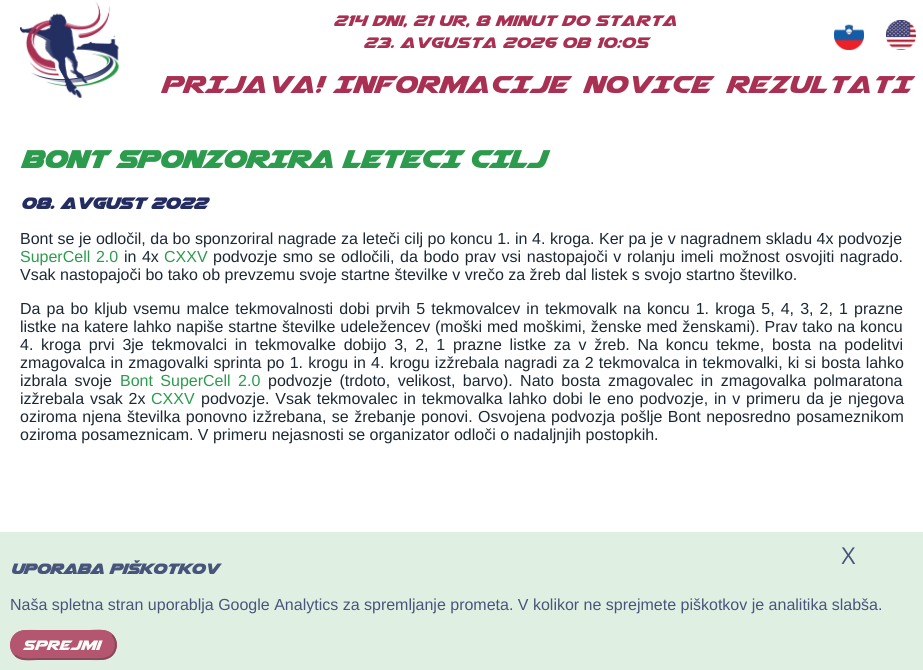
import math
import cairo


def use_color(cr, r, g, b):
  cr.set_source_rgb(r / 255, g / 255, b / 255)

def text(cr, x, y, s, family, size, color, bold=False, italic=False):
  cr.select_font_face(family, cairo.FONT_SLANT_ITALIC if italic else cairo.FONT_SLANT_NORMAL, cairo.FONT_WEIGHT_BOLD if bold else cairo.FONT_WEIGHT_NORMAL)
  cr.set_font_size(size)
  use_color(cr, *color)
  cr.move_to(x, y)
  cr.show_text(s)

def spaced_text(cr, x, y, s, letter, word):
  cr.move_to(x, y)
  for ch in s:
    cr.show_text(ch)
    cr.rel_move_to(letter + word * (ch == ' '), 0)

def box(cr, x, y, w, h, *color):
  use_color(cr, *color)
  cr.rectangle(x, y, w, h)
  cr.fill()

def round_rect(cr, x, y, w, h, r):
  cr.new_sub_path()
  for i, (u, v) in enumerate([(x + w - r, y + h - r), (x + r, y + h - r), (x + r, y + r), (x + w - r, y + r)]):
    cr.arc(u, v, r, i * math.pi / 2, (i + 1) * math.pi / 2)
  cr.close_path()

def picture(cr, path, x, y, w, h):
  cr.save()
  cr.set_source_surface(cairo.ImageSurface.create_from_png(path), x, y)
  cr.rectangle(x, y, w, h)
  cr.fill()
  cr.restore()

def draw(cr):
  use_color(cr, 255, 255, 255)
  cr.paint()
  picture(cr, "img_01.png", 20, 1, 99, 97)
  picture(cr, "img_02.png", 834, 24, 30, 26)
  picture(cr, "img_03.png", 886, 20, 30, 30)
  box(cr, 0, 532, 923, 138, 223, 240, 227)
  use_color(cr, 181, 86, 112)
  round_rect(cr, 10, 630, 107, 30, 15)
  cr.fill()
  cr.new_path()
  cr.move_to(112, 635)
  cr.curve_to(115, 638.5, 116.5, 643, 115.5, 647.5)
  cr.curve_to(113, 661, 99.5, 659, 89, 659)
  cr.line_to(38, 659)
  cr.curve_to(30.5, 659, 21, 661, 15, 655)
  use_color(cr, 135, 74, 89)
  cr.stroke()
  cr.new_path()
  cr.move_to(15, 655)
  cr.curve_to(12, 651.5, 10.5, 647, 11.5, 642.5)
  cr.curve_to(14, 629, 27.5, 631, 38, 631)
  cr.line_to(89, 631)
  cr.curve_to(96.5, 631, 106, 629, 112, 635)
  use_color(cr, 181, 86, 112)
  cr.stroke()
  text(cr, 333, 26, "214 dni, 21 ur, 8 minut do starta", "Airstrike", 20, (169, 48, 83))
  text(cr, 363, 48, "23. avgusta 2026 ob 10:05", "Airstrike", 20, (169, 48, 83))
  text(cr, 160, 93, "PRIJAVA!", "Airstrike", 32, (169, 48, 83))
  text(cr, 332, 93, "INFORMACIJE", "Airstrike", 32, (169, 48, 83))
  text(cr, 582, 93, "NOVICE", "Airstrike", 32, (169, 48, 83))
  text(cr, 725, 93, "REZULTATI", "Airstrike", 32, (169, 48, 83))
  text(cr, 20, 168, "BONT SPONZORIRA LETECI CILJ", "Airstrike", 32, (44, 155, 77), bold=True)
  text(cr, 20, 209, "08. AVGUST 2022", "Airstrike", 20.75, (36, 45, 97), bold=True)
  cr.select_font_face("Liberation Sans")
  cr.set_font_size(16)
  use_color(cr, 28, 40, 51)
  spaced_text(cr, 20, 244, "Bont se je odločil, da bo sponzoriral nagrade za leteči cilj po koncu 1. in 4. kroga. Ker pa je v nagradnem skladu 4x podvozje", 0, 0.1)
  use_color(cr, 44, 155, 77)
  spaced_text(cr, 20, 262, "SuperCell 2.0", 0, 1.2)
  use_color(cr, 28, 40, 51)
  spaced_text(cr, 124, 262, "in 4x", 0, 1)
  text(cr, 164, 262, "CXXV", "Liberation Sans", 16, (44, 155, 77))
  use_color(cr, 28, 40, 51)
  spaced_text(cr, 213, 262, "podvozje smo se odločili, da bodo prav vsi nastopajoči v rolanju imeli možnost osvojiti nagrado.", 0, 1.2)
  text(cr, 20, 280, "Vsak nastopajoči bo tako ob prevzemu svoje startne številke v vrečo za žreb dal listek s svojo startno številko.", "Liberation Sans", 16, (28, 40, 51))
  spaced_text(cr, 20, 314, "Da pa bo kljub vsemu malce tekmovalnosti dobi prvih 5 tekmovalcev in tekmovalk na koncu 1. kroga 5, 4, 3, 2, 1 prazne", 0, 1.65)
  spaced_text(cr, 20, 332, "listke na katere lahko napiše startne številke udeležencev (moški med moškimi, ženske med ženskami). Prav tako na koncu", 0, 0.4)
  spaced_text(cr, 20, 350, "4. kroga prvi 3je tekmovalci in tekmovalke dobijo 3, 2, 1 prazne listke za v žreb. Na koncu tekme, bosta na podelitvi", 0, 3.3)
  spaced_text(cr, 20, 368, "zmagovalca in zmagovalki sprinta po 1. krogu in 4. krogu izžrebala nagradi za 2 tekmovalca in tekmovalki, ki si bosta lahko", 0, 0.75)
  spaced_text(cr, 20, 386, "izbrala svoje", 0, 3)
  use_color(cr, 44, 155, 77)
  spaced_text(cr, 120, 386, "Bont SuperCell 2.0", 0, 3)
  use_color(cr, 28, 40, 51)
  spaced_text(cr, 268, 386, "podvozje (trdoto, velikost, barvo). Nato bosta zmagovalec in zmagovalka polmaratona", 0, 3)
  spaced_text(cr, 20, 404, "izžrebala vsak 2x", 0, 1.4)
  text(cr, 151, 404, "CXXV", "Liberation Sans", 16, (44, 155, 77))
  use_color(cr, 28, 40, 51)
  spaced_text(cr, 201, 404, "podvozje. Vsak tekmovalec in tekmovalka lahko dobi le eno podvozje, in v primeru da je njegova", 0, 1.4)
  spaced_text(cr, 20, 422, "oziroma njena številka ponovno izžrebana, se žrebanje ponovi. Osvojena podvozja pošlje Bont neposredno posameznikom", 0, 1)
  text(cr, 20, 440, "oziroma posameznicam. V primeru nejasnosti se organizator odloči o nadaljnjih postopkih.", "Liberation Sans", 16, (28, 40, 51))
  text(cr, 841, 564, "X", "Ubuntu", 24, (73, 84, 123))
  text(cr, 10, 574, "Uporaba piškotkov", "Airstrike", 18.75, (73, 84, 123), bold=True)
  text(cr, 10, 610, "Naša spletna stran uporablja Google Analytics za spremljanje prometa. V kolikor ne sprejmete piškotkov je analitika slabša.", "Liberation Sans", 16, (73, 84, 123))
  text(cr, 22, 650, "Sprejmi", "Airstrike", 18, (249, 252, 249))


surface = cairo.ImageSurface(cairo.FORMAT_RGB24, 923, 670)
cr = cairo.Context(surface)
options = cairo.FontOptions()
options.set_hint_metrics(cairo.HINT_METRICS_OFF)
options.set_hint_style(cairo.HINT_STYLE_NONE)
cr.set_font_options(options)
cr.set_miter_limit(4)
draw(cr)
surface.write_to_png("out.png")
